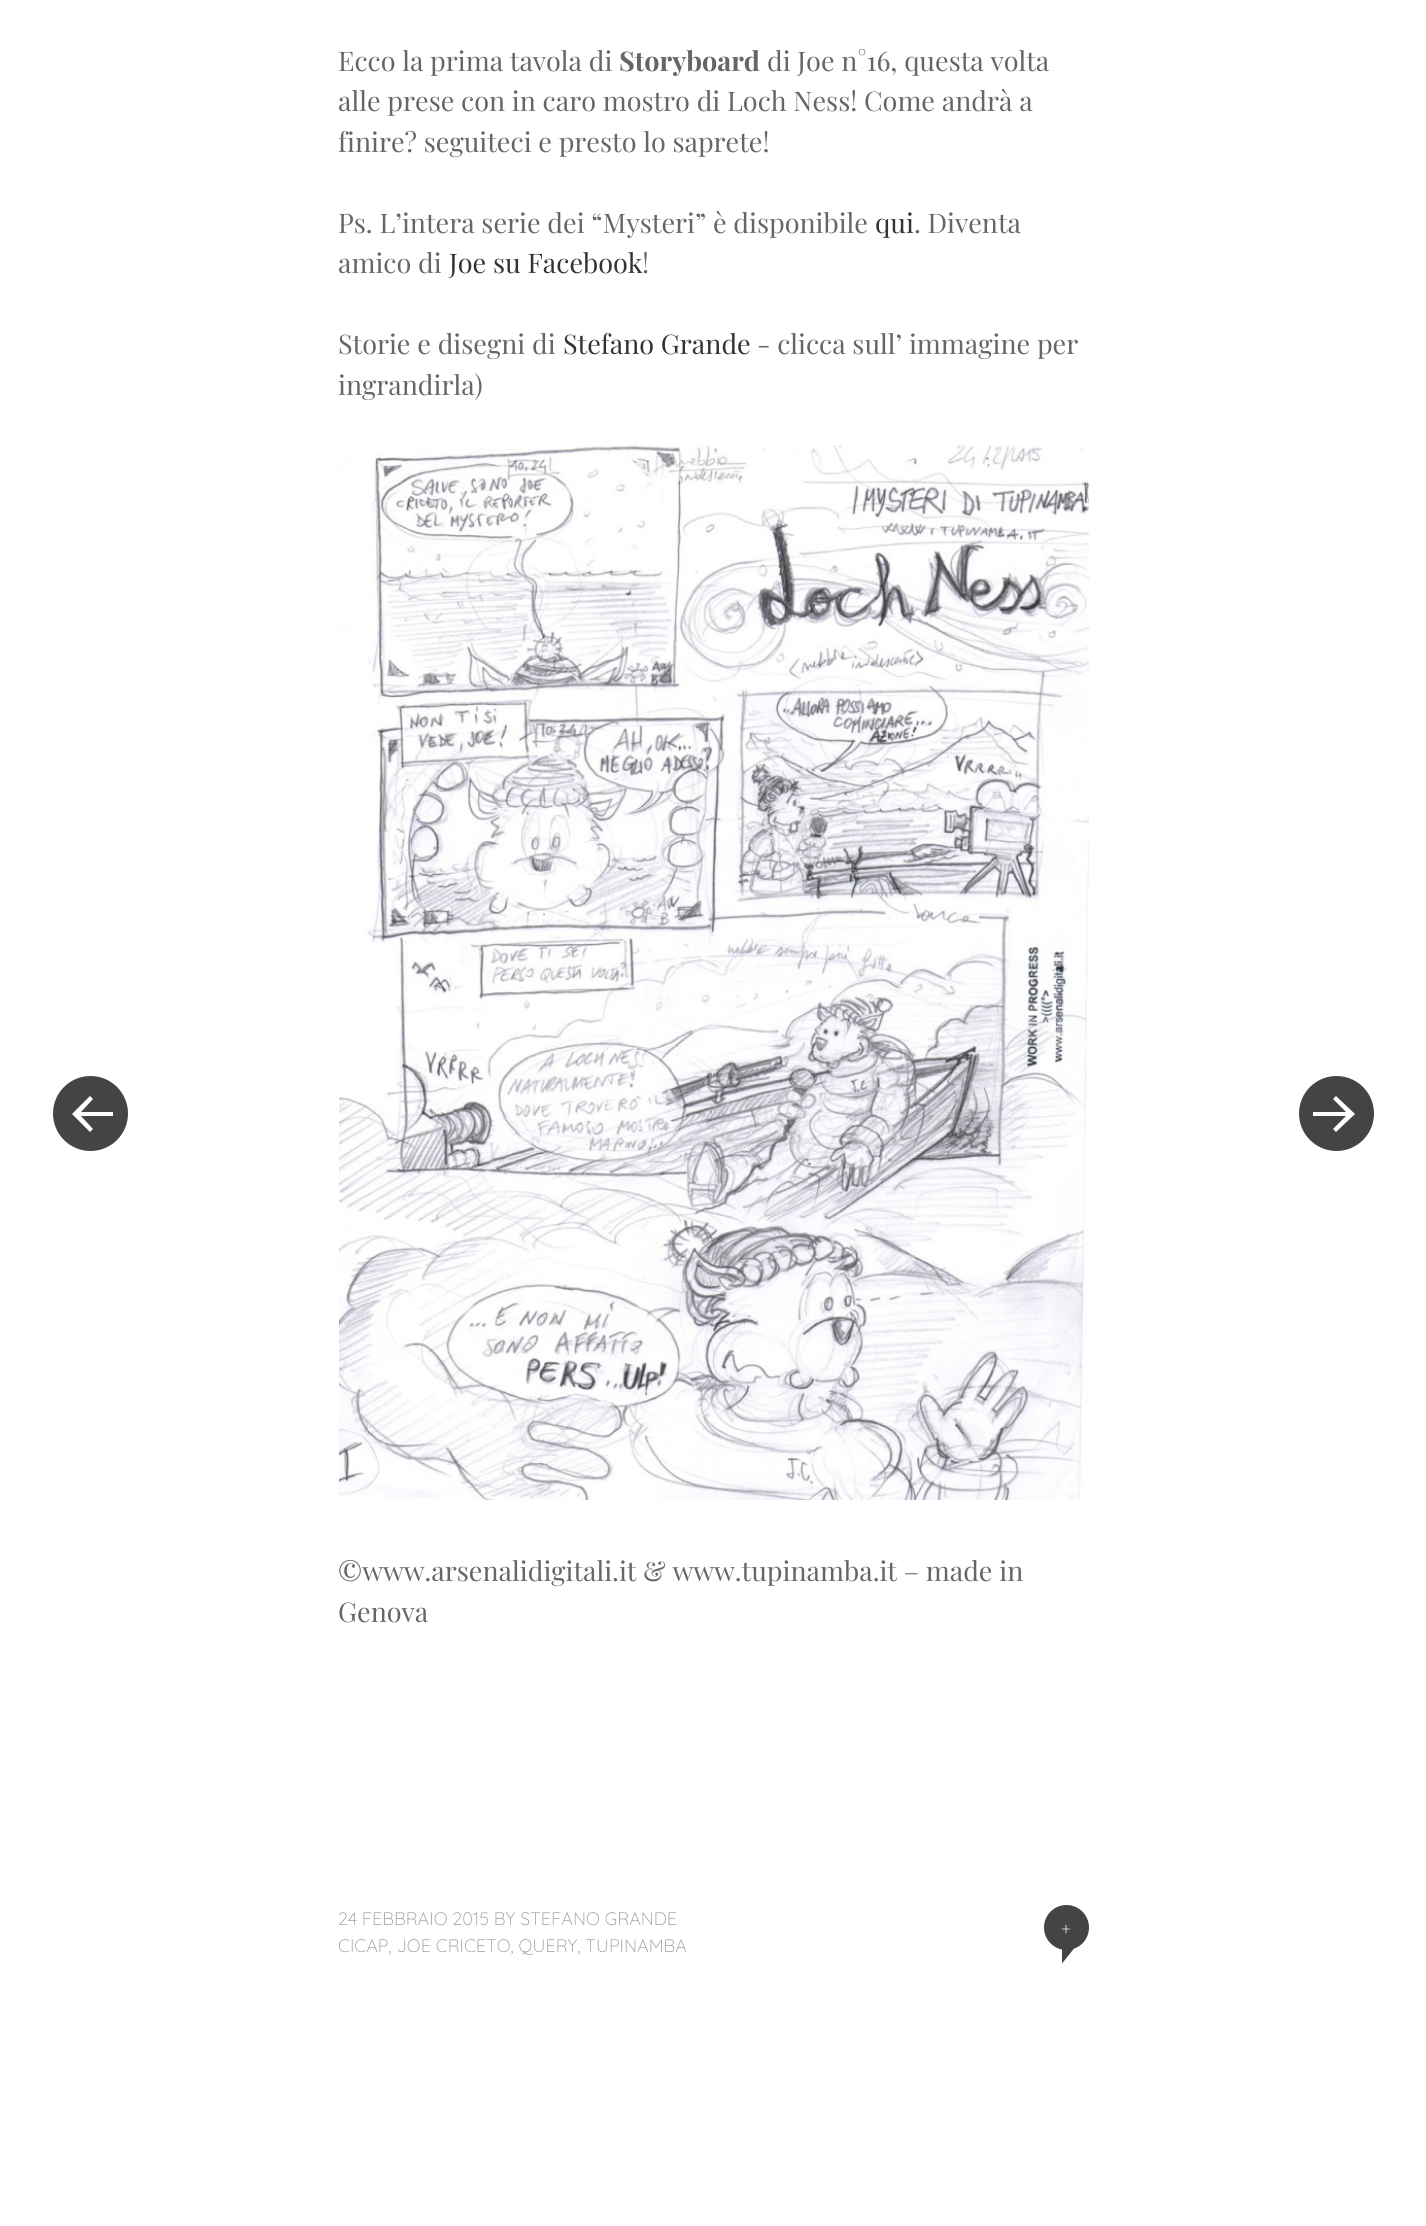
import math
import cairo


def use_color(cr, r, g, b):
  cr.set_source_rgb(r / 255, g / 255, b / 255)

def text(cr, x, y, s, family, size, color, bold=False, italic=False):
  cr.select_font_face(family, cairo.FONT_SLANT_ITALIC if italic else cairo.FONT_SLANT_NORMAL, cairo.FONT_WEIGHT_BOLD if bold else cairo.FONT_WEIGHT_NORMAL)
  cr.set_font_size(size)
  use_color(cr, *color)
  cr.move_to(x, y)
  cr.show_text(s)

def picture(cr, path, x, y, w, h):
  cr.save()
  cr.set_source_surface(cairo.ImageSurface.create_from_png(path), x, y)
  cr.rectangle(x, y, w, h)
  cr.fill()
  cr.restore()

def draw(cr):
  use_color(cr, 255, 255, 255)
  cr.paint()
  picture(cr, "img_01.png", 339, 445, 750, 1055)
  use_color(cr, 68, 68, 68)
  cr.new_path()
  cr.move_to(1062, 1948.5)
  cr.line_to(1074, 1948.5)
  cr.line_to(1062, 1963.5)
  cr.close_path()
  cr.fill()
  cr.arc(1066.5, 1927.5, 22.5, 0, 2 * math.pi)
  cr.fill()
  cr.arc(90.5, 1113.5, 37.5, 0, 2 * math.pi)
  cr.fill()
  use_color(cr, 255, 255, 255)
  cr.new_path()
  cr.move_to(72, 1114)
  cr.line_to(90, 1132)
  cr.line_to(93, 1129)
  cr.line_to(81, 1116)
  cr.line_to(113, 1116)
  cr.line_to(113, 1112)
  cr.line_to(81, 1112)
  cr.line_to(93, 1099)
  cr.line_to(90, 1096)
  cr.close_path()
  cr.fill()
  use_color(cr, 68, 68, 68)
  cr.arc(1336.5, 1113.5, 37.5, 0, 2 * math.pi)
  cr.fill()
  use_color(cr, 255, 255, 255)
  cr.new_path()
  cr.move_to(1355, 1114)
  cr.line_to(1336, 1132)
  cr.line_to(1333, 1129)
  cr.line_to(1346, 1116)
  cr.line_to(1313, 1116)
  cr.line_to(1313, 1112)
  cr.line_to(1346, 1112)
  cr.line_to(1333, 1099)
  cr.line_to(1336, 1096)
  cr.close_path()
  cr.fill()
  text(cr, 338, 71, "Ecco la prima tavola di", "Playfair Display", 27, (102, 102, 102))
  text(cr, 619, 71, "Storyboard", "Playfair Display", 27, (102, 102, 102), bold=True)
  text(cr, 767, 71, "di Joe n°16, questa volta", "Playfair Display", 27, (102, 102, 102))
  text(cr, 338, 111, "alle prese con in caro mostro di Loch Ness! Come andrà a", "Playfair Display", 27, (102, 102, 102))
  text(cr, 338, 152, "finire? seguiteci e presto lo saprete!", "Playfair Display", 27, (102, 102, 102))
  text(cr, 338, 233, "Ps. L’intera serie dei “Mysteri” è disponibile", "Playfair Display", 27, (102, 102, 102))
  text(cr, 875, 233, "qui", "Playfair Display", 27, (51, 51, 51))
  text(cr, 914, 233, ". Diventa", "Playfair Display", 27, (102, 102, 102))
  text(cr, 338, 273, "amico di", "Playfair Display", 27, (102, 102, 102))
  text(cr, 449, 273, "Joe su Facebook", "Playfair Display", 27, (51, 51, 51))
  text(cr, 642, 273, "!", "Playfair Display", 27, (102, 102, 102))
  text(cr, 338, 354, "Storie e disegni di", "Playfair Display", 27, (102, 102, 102))
  text(cr, 563, 354, "Stefano Grande", "Playfair Display", 27, (51, 51, 51))
  text(cr, 757, 354, "- clicca sull’ immagine per", "Playfair Display", 27, (102, 102, 102))
  text(cr, 338, 395, "ingrandirla)", "Playfair Display", 27, (102, 102, 102))
  text(cr, 338, 1581, "©www.arsenalidigitali.it & www.tupinamba.it – made in", "Playfair Display", 27, (102, 102, 102))
  text(cr, 338, 1622, "Genova", "Playfair Display", 27, (102, 102, 102))
  text(cr, 338, 1925, "24 FEBBRAIO 2015 BY STEFANO GRANDE", "Quicksand Light", 18, (153, 153, 153))
  text(cr, 338, 1952, "CICAP, JOE CRICETO, QUERY, TUPINAMBA", "Quicksand Light", 18, (153, 153, 153))
  text(cr, 1061, 1935, "+", "Quicksand Light", 18, (255, 255, 255))


surface = cairo.ImageSurface(cairo.FORMAT_RGB24, 1426, 2226)
cr = cairo.Context(surface)
options = cairo.FontOptions()
options.set_hint_metrics(cairo.HINT_METRICS_OFF)
options.set_hint_style(cairo.HINT_STYLE_NONE)
cr.set_font_options(options)
cr.set_miter_limit(4)
draw(cr)
surface.write_to_png("out.png")
